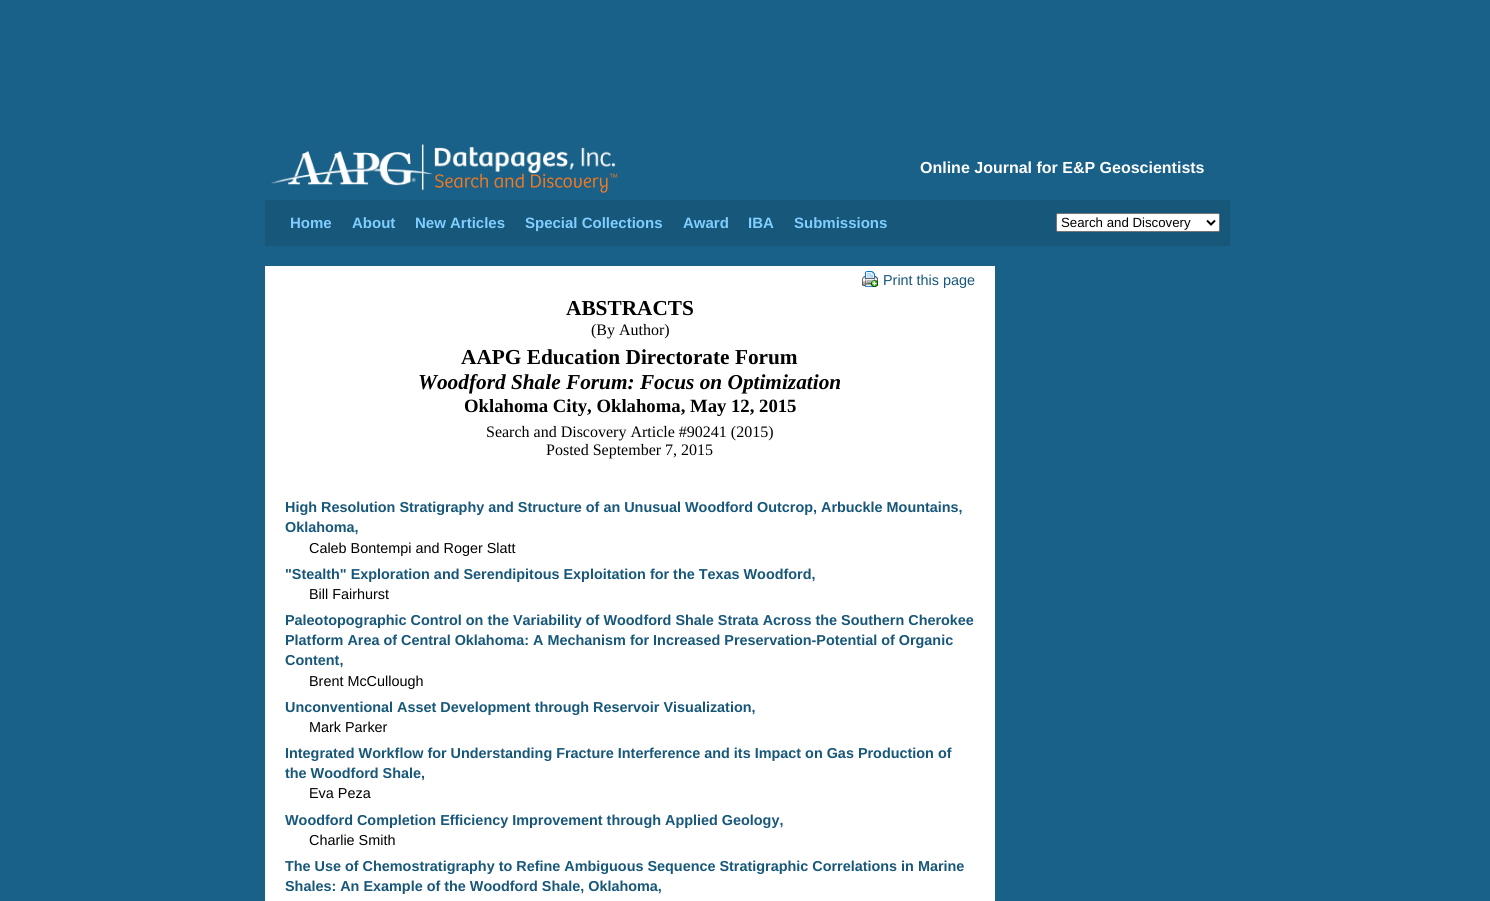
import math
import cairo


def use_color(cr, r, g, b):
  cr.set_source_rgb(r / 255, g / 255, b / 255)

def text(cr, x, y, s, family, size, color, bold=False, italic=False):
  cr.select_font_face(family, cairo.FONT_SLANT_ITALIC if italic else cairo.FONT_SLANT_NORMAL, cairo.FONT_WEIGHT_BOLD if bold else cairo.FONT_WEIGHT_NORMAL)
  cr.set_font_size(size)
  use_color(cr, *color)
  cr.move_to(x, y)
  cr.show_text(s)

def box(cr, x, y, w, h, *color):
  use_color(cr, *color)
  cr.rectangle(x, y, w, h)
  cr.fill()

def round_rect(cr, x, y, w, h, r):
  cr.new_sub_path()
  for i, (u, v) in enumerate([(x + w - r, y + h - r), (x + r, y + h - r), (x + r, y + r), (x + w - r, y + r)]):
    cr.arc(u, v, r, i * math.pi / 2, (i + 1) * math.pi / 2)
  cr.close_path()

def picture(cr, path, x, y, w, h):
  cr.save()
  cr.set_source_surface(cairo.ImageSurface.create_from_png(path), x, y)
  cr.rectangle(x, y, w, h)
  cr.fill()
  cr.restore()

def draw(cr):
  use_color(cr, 25, 97, 136)
  cr.paint()
  picture(cr, "img_01.png", 271, 143, 347, 50)
  box(cr, 265, 200, 965, 46, 22, 87, 122)
  use_color(cr, 255, 255, 255)
  round_rect(cr, 1056.5, 213.5, 163, 18, 1.5)
  cr.fill_preserve()
  use_color(cr, 118, 118, 118)
  cr.set_line_width(1)
  cr.stroke()
  cr.new_path()
  cr.move_to(1207, 220.5)
  cr.line_to(1211, 224.5)
  cr.line_to(1215, 220.5)
  use_color(cr, 0, 0, 0)
  cr.set_line_width(2)
  cr.stroke()
  box(cr, 265, 266, 730, 635, 255, 255, 255)
  picture(cr, "img_02.png", 862, 271, 16, 16)
  text(cr, 920, 173, "Online Journal for E&P Geoscientists", "Liberation Sans", 16, (255, 255, 255), bold=True)
  text(cr, 290, 228, "Home", "Liberation Sans", 15, (128, 206, 255), bold=True)
  text(cr, 352, 228, "About", "Liberation Sans", 15, (128, 206, 255), bold=True)
  text(cr, 415, 228, "New Articles", "Liberation Sans", 15, (128, 206, 255), bold=True)
  text(cr, 525, 228, "Special Collections", "Liberation Sans", 15, (128, 206, 255), bold=True)
  text(cr, 683, 228, "Award", "Liberation Sans", 15, (128, 206, 255), bold=True)
  text(cr, 748, 228, "IBA", "Liberation Sans", 15, (128, 206, 255), bold=True)
  text(cr, 794, 228, "Submissions", "Liberation Sans", 15, (128, 206, 255), bold=True)
  text(cr, 1061, 227, "Search and Discovery", "Liberation Sans", 13.25, (0, 0, 0))
  text(cr, 883, 285, "Print this page", "Liberation Sans", 14.4, (22, 87, 122))
  text(cr, 566, 315, "ABSTRACTS", "Liberation Serif", 21.3, (0, 0, 0), bold=True)
  text(cr, 591, 335, "(By Author)", "Liberation Serif", 16, (0, 0, 0))
  text(cr, 461, 364, "AAPG Education Directorate Forum", "Liberation Serif", 21.3, (0, 0, 0), bold=True)
  text(cr, 418, 389, "Woodford Shale Forum: Focus on Optimization", "Liberation Serif", 21.3, (0, 0, 0), bold=True, italic=True)
  text(cr, 464, 412, "Oklahoma City, Oklahoma, May 12, 2015", "Liberation Serif", 18.7, (0, 0, 0), bold=True)
  text(cr, 486, 437, "Search and Discovery Article #90241 (2015)", "Liberation Serif", 16, (0, 0, 0))
  text(cr, 546, 455, "Posted September 7, 2015", "Liberation Serif", 16, (0, 0, 0))
  text(cr, 285, 512, "High Resolution Stratigraphy and Structure of an Unusual Woodford Outcrop, Arbuckle Mountains,", "Liberation Sans", 14.4, (22, 87, 122), bold=True)
  text(cr, 285, 532, "Oklahoma,", "Liberation Sans", 14.4, (22, 87, 122), bold=True)
  text(cr, 309, 553, "Caleb Bontempi and Roger Slatt", "Liberation Sans", 14.4, (0, 0, 0))
  text(cr, 285, 579, "\"Stealth\" Exploration and Serendipitous Exploitation for the Texas Woodford,", "Liberation Sans", 14.4, (22, 87, 122), bold=True)
  text(cr, 309, 599, "Bill Fairhurst", "Liberation Sans", 14.4, (0, 0, 0))
  text(cr, 285, 625, "Paleotopographic Control on the Variability of Woodford Shale Strata Across the Southern Cherokee", "Liberation Sans", 14.4, (22, 87, 122), bold=True)
  text(cr, 285, 645, "Platform Area of Central Oklahoma: A Mechanism for Increased Preservation-Potential of Organic", "Liberation Sans", 14.4, (22, 87, 122), bold=True)
  text(cr, 285, 665, "Content,", "Liberation Sans", 14.4, (22, 87, 122), bold=True)
  text(cr, 309, 686, "Brent McCullough", "Liberation Sans", 14.4, (0, 0, 0))
  text(cr, 285, 712, "Unconventional Asset Development through Reservoir Visualization,", "Liberation Sans", 14.4, (22, 87, 122), bold=True)
  text(cr, 309, 732, "Mark Parker", "Liberation Sans", 14.4, (0, 0, 0))
  text(cr, 285, 758, "Integrated Workflow for Understanding Fracture Interference and its Impact on Gas Production of", "Liberation Sans", 14.4, (22, 87, 122), bold=True)
  text(cr, 285, 778, "the Woodford Shale,", "Liberation Sans", 14.4, (22, 87, 122), bold=True)
  text(cr, 309, 798, "Eva Peza", "Liberation Sans", 14.4, (0, 0, 0))
  text(cr, 285, 825, "Woodford Completion Efficiency Improvement through Applied Geology,", "Liberation Sans", 14.4, (22, 87, 122), bold=True)
  text(cr, 309, 845, "Charlie Smith", "Liberation Sans", 14.4, (0, 0, 0))
  text(cr, 285, 871, "The Use of Chemostratigraphy to Refine Ambiguous Sequence Stratigraphic Correlations in Marine", "Liberation Sans", 14.4, (22, 87, 122), bold=True)
  text(cr, 285, 891, "Shales: An Example of the Woodford Shale, Oklahoma,", "Liberation Sans", 14.4, (22, 87, 122), bold=True)


surface = cairo.ImageSurface(cairo.FORMAT_RGB24, 1490, 901)
cr = cairo.Context(surface)
options = cairo.FontOptions()
options.set_hint_metrics(cairo.HINT_METRICS_OFF)
options.set_hint_style(cairo.HINT_STYLE_NONE)
cr.set_font_options(options)
cr.set_miter_limit(4)
draw(cr)
surface.write_to_png("out.png")
